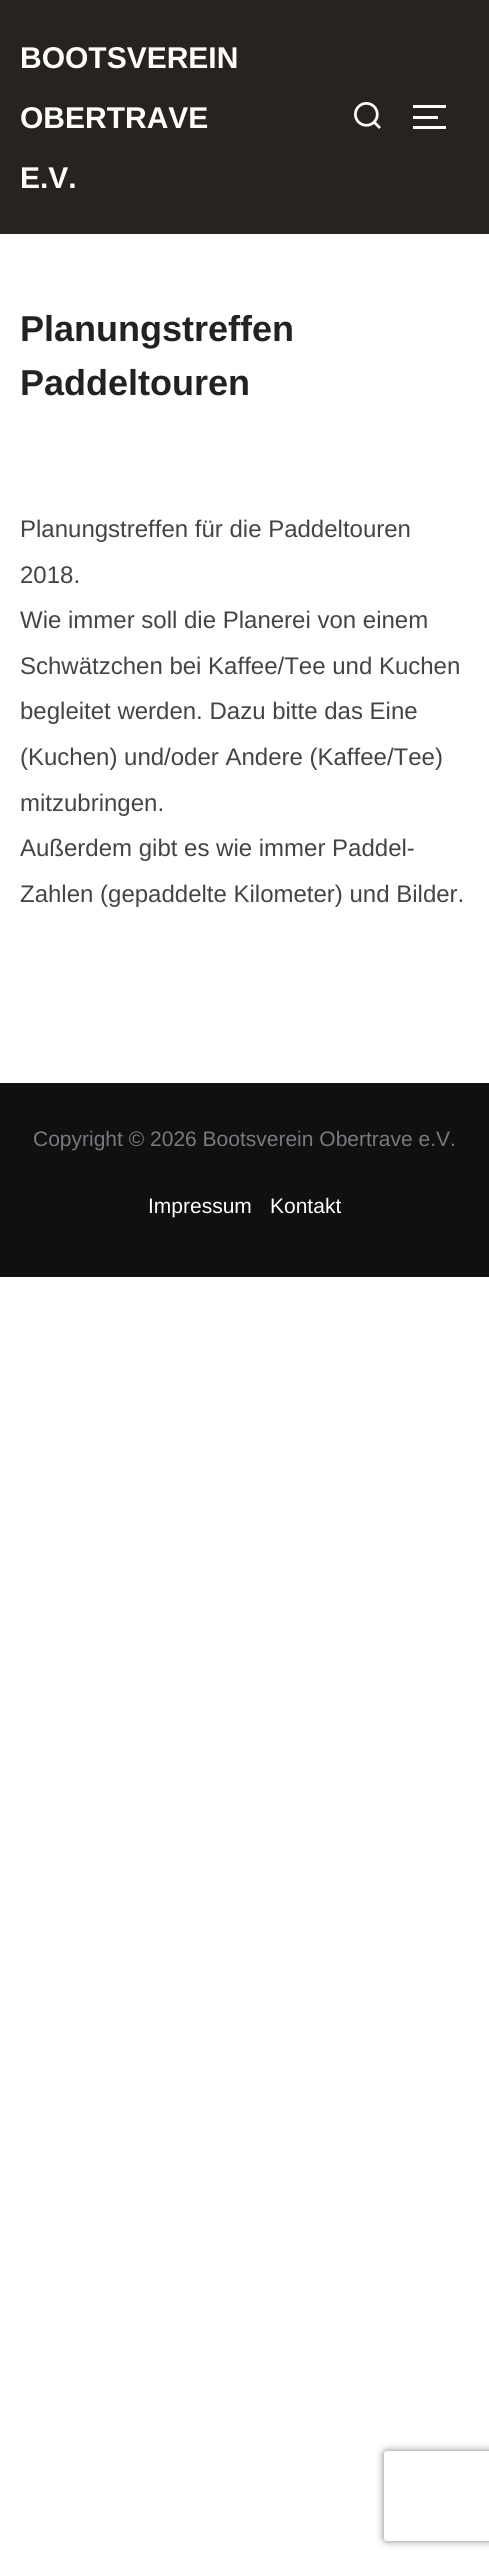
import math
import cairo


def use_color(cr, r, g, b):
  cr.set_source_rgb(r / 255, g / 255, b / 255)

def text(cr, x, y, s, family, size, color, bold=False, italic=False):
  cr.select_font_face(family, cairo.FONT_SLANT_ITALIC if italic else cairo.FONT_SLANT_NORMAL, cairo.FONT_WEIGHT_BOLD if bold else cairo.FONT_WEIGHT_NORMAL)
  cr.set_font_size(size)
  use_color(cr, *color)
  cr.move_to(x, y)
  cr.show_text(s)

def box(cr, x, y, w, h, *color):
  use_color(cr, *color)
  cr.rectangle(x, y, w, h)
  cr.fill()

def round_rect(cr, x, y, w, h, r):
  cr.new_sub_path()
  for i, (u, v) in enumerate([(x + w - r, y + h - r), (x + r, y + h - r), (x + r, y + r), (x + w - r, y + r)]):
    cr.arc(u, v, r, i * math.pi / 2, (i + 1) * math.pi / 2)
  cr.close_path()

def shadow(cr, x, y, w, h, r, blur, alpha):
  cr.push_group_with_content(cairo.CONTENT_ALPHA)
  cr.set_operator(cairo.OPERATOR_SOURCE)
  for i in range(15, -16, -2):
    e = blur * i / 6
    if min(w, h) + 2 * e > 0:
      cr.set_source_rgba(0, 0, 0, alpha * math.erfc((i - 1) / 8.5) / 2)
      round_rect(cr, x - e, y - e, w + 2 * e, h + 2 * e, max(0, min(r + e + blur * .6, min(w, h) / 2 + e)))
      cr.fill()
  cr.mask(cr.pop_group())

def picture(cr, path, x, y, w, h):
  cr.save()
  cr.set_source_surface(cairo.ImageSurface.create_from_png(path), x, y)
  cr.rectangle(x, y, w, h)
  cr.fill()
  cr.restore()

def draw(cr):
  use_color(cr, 255, 255, 255)
  cr.paint()
  box(cr, 0, 0, 489, 234, 40, 35, 30)
  picture(cr, "img_01.png", 354, 102, 27, 27)
  box(cr, 413, 105, 33, 3, 255, 255, 255)
  box(cr, 413, 116, 25, 3, 255, 255, 255)
  box(cr, 413, 126, 33, 3, 255, 255, 255)
  box(cr, 0, 1083, 489, 194, 16, 16, 16)
  cr.save()
  cr.set_fill_rule(cairo.FILL_RULE_EVEN_ODD)
  cr.new_path()
  cr.move_to(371, 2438)
  cr.line_to(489, 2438)
  cr.line_to(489, 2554)
  cr.line_to(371, 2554)
  cr.close_path()
  cr.move_to(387, 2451)
  cr.line_to(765, 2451)
  cr.curve_to(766.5, 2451, 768, 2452.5, 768, 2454)
  cr.line_to(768, 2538)
  cr.curve_to(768, 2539.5, 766.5, 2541, 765, 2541)
  cr.line_to(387, 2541)
  cr.curve_to(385.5, 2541, 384, 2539.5, 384, 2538)
  cr.line_to(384, 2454)
  cr.curve_to(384, 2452.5, 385.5, 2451, 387, 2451)
  cr.close_path()
  cr.clip()
  use_color(cr, 128, 128, 128)
  shadow(cr, 384, 2451, 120, 90, 3, 4, 1)
  cr.restore()
  text(cr, 20, 68, "BOOTSVEREIN", "Liberation Sans", 30, (255, 255, 255), bold=True)
  text(cr, 20, 128, "OBERTRAVE", "Liberation Sans", 30, (255, 255, 255), bold=True)
  text(cr, 20, 188, "E.V.", "Liberation Sans", 30, (255, 255, 255), bold=True)
  text(cr, 20, 341, "Planungstreffen", "Liberation Sans", 36, (34, 34, 34), bold=True)
  text(cr, 20, 395, "Paddeltouren", "Liberation Sans", 36, (34, 34, 34), bold=True)
  text(cr, 20, 537, "Planungstreffen für die Paddeltouren", "Liberation Sans", 24, (68, 68, 68))
  text(cr, 20, 583, "2018.", "Liberation Sans", 24, (68, 68, 68))
  text(cr, 20, 628, "Wie immer soll die Planerei von einem", "Liberation Sans", 24, (68, 68, 68))
  text(cr, 20, 674, "Schwätzchen bei Kaffee/Tee und Kuchen", "Liberation Sans", 24, (68, 68, 68))
  text(cr, 20, 719, "begleitet werden. Dazu bitte das Eine", "Liberation Sans", 24, (68, 68, 68))
  text(cr, 20, 765, "(Kuchen) und/oder Andere (Kaffee/Tee)", "Liberation Sans", 24, (68, 68, 68))
  text(cr, 20, 811, "mitzubringen.", "Liberation Sans", 24, (68, 68, 68))
  text(cr, 20, 856, "Außerdem gibt es wie immer Paddel-", "Liberation Sans", 24, (68, 68, 68))
  text(cr, 20, 902, "Zahlen (gepaddelte Kilometer) und Bilder.", "Liberation Sans", 24, (68, 68, 68))
  text(cr, 33, 1146, "Copyright © 2026 Bootsverein Obertrave e.V.", "Liberation Sans", 21, (120, 120, 127))
  text(cr, 148, 1213, "Impressum", "Liberation Sans", 21, (255, 255, 255))
  text(cr, 270, 1213, "Kontakt", "Liberation Sans", 21, (255, 255, 255))


surface = cairo.ImageSurface(cairo.FORMAT_RGB24, 489, 2562)
cr = cairo.Context(surface)
options = cairo.FontOptions()
options.set_hint_metrics(cairo.HINT_METRICS_OFF)
options.set_hint_style(cairo.HINT_STYLE_NONE)
cr.set_font_options(options)
cr.set_miter_limit(4)
draw(cr)
surface.write_to_png("out.png")
